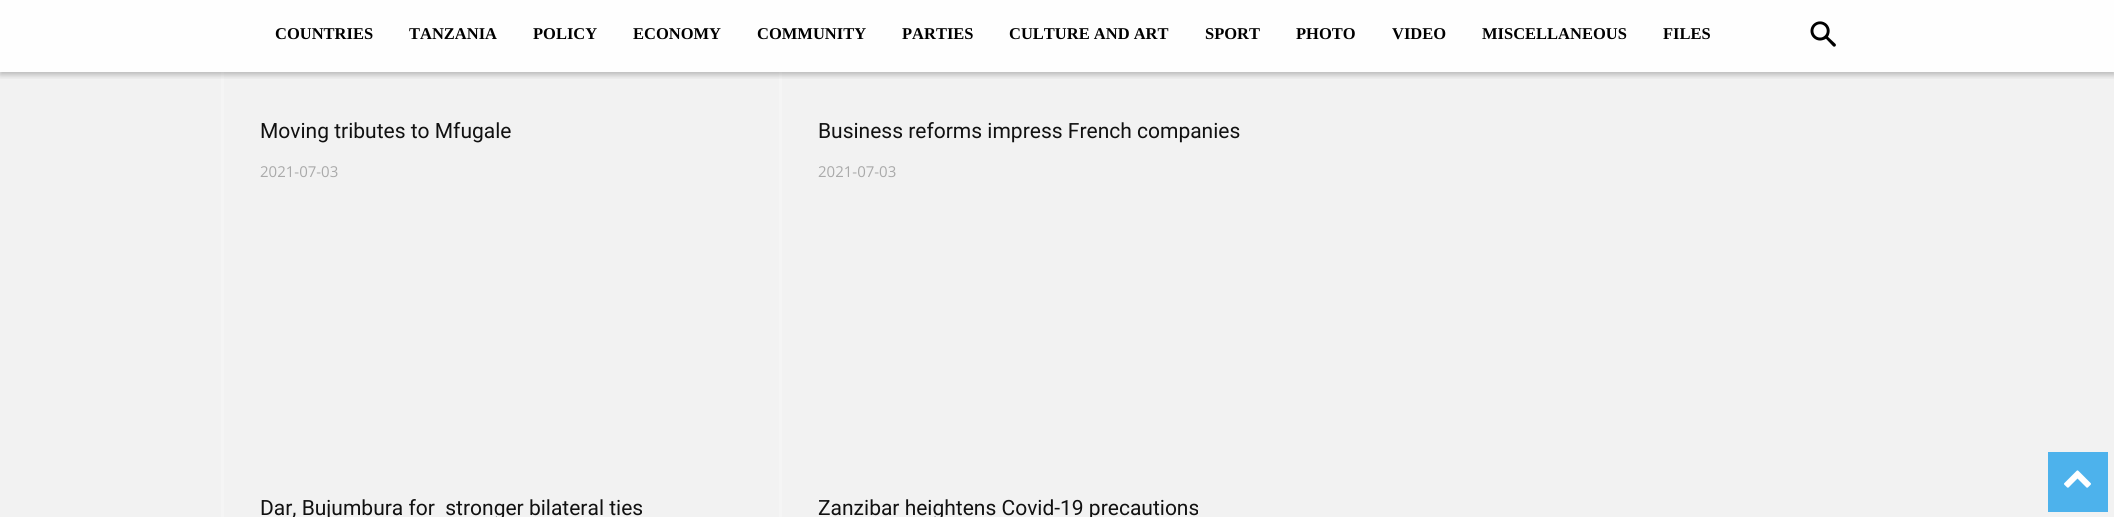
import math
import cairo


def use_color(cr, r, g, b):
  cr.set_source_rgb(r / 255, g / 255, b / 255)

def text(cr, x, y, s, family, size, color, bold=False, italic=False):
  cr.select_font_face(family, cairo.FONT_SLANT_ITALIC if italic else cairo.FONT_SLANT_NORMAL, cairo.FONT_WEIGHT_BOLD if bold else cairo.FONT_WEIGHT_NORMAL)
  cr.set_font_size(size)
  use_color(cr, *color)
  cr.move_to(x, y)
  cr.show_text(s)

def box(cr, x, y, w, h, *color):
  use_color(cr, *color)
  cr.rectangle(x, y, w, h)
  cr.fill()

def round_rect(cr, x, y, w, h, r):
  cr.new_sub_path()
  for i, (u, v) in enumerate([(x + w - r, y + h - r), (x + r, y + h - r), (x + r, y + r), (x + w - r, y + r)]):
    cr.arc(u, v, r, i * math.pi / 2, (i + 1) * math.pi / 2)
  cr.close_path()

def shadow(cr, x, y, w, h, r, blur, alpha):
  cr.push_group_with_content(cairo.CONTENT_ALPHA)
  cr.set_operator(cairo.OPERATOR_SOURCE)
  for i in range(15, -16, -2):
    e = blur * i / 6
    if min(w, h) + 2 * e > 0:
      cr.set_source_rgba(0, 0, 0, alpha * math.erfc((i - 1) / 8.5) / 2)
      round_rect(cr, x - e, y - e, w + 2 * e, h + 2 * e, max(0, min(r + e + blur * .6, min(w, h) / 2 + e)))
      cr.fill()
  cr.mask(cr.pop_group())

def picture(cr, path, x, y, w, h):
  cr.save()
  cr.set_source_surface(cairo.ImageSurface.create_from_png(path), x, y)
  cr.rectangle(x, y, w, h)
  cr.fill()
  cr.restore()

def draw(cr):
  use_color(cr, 242, 242, 242)
  cr.paint()
  box(cr, 0, 0, 2114, 72, 254, 254, 254)
  box(cr, 221, 72, 3, 445, 245, 245, 245)
  box(cr, 779, 72, 3, 445, 245, 245, 245)
  cr.save()
  cr.rectangle(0, 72, 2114, 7)
  cr.clip()
  use_color(cr, 0, 0, 0)
  shadow(cr, 0, 3, 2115, 72, 0, 3, 0.24)
  cr.restore()
  picture(cr, "img_01.png", 1810, 21, 26, 26)
  box(cr, 2048, 452, 60, 60, 77, 178, 236)
  picture(cr, "img_02.png", 2064, 470, 27, 18)
  text(cr, 275, 39, "COUNTRIES", "Liberation Serif", 16.5, (0, 0, 0), bold=True)
  text(cr, 409, 39, "TANZANIA", "Liberation Serif", 16.5, (0, 0, 0), bold=True)
  text(cr, 533, 39, "POLICY", "Liberation Serif", 16.5, (0, 0, 0), bold=True)
  text(cr, 633, 39, "ECONOMY", "Liberation Serif", 16.5, (0, 0, 0), bold=True)
  text(cr, 757, 39, "COMMUNITY", "Liberation Serif", 16.5, (0, 0, 0), bold=True)
  text(cr, 902, 39, "PARTIES", "Liberation Serif", 16.5, (0, 0, 0), bold=True)
  text(cr, 1009, 39, "CULTURE AND ART", "Liberation Serif", 16.5, (0, 0, 0), bold=True)
  text(cr, 1205, 39, "SPORT", "Liberation Serif", 16.5, (0, 0, 0), bold=True)
  text(cr, 1296, 39, "PHOTO", "Liberation Serif", 16.5, (0, 0, 0), bold=True)
  text(cr, 1392, 39, "VIDEO", "Liberation Serif", 16.5, (0, 0, 0), bold=True)
  text(cr, 1482, 39, "MISCELLANEOUS", "Liberation Serif", 16.5, (0, 0, 0), bold=True)
  text(cr, 1663, 39, "FILES", "Liberation Serif", 16.5, (0, 0, 0), bold=True)
  text(cr, 260, 138, "Moving tributes to Mfugale", "Roboto", 21, (17, 17, 17))
  text(cr, 260, 177, "2021-07-03", "Open Sans", 15, (170, 170, 170))
  text(cr, 818, 138, "Business reforms impress French companies", "Roboto", 21, (17, 17, 17))
  text(cr, 818, 177, "2021-07-03", "Open Sans", 15, (170, 170, 170))
  text(cr, 260, 515, "Dar, Bujumbura for  stronger bilateral ties", "Roboto", 21, (17, 17, 17))
  text(cr, 818, 515, "Zanzibar heightens Covid-19 precautions", "Roboto", 21, (17, 17, 17))


surface = cairo.ImageSurface(cairo.FORMAT_RGB24, 2114, 517)
cr = cairo.Context(surface)
options = cairo.FontOptions()
options.set_hint_metrics(cairo.HINT_METRICS_OFF)
options.set_hint_style(cairo.HINT_STYLE_NONE)
cr.set_font_options(options)
cr.set_miter_limit(4)
draw(cr)
surface.write_to_png("out.png")
